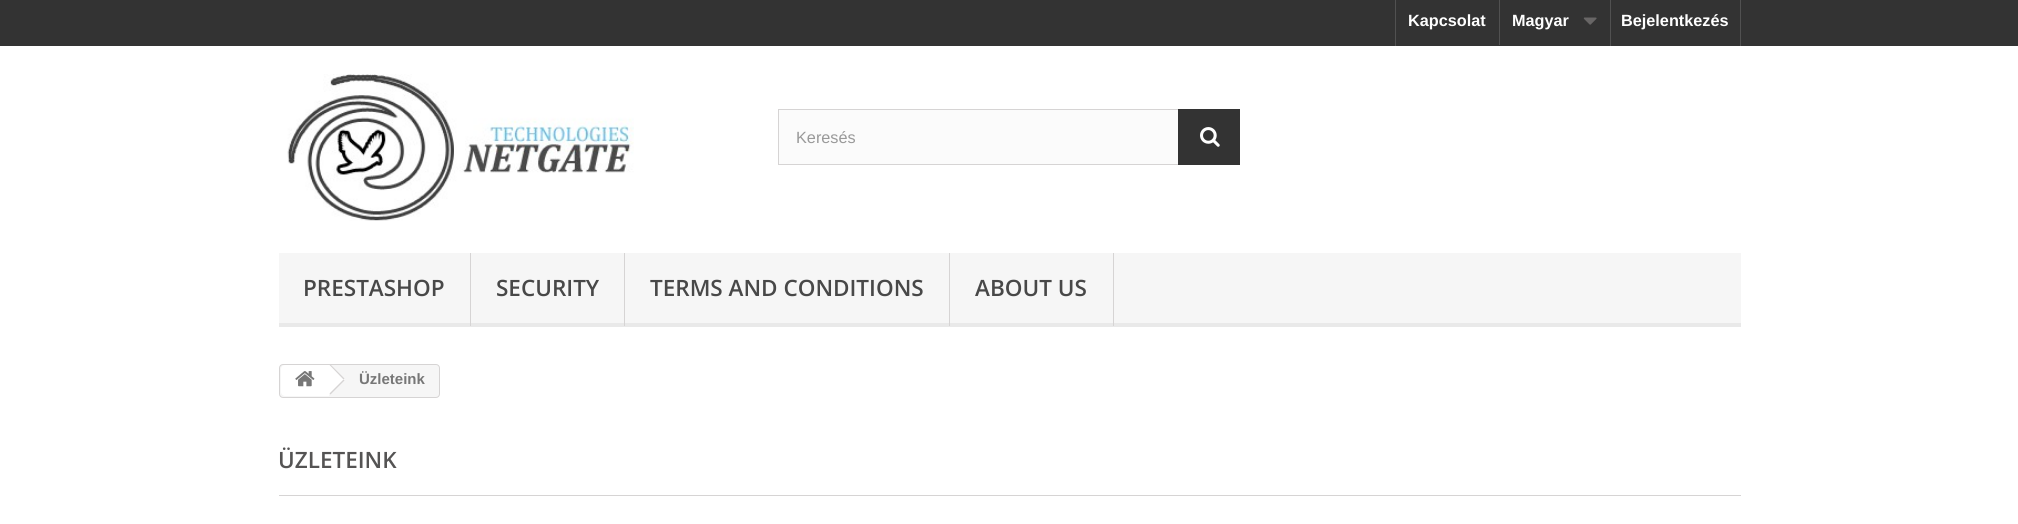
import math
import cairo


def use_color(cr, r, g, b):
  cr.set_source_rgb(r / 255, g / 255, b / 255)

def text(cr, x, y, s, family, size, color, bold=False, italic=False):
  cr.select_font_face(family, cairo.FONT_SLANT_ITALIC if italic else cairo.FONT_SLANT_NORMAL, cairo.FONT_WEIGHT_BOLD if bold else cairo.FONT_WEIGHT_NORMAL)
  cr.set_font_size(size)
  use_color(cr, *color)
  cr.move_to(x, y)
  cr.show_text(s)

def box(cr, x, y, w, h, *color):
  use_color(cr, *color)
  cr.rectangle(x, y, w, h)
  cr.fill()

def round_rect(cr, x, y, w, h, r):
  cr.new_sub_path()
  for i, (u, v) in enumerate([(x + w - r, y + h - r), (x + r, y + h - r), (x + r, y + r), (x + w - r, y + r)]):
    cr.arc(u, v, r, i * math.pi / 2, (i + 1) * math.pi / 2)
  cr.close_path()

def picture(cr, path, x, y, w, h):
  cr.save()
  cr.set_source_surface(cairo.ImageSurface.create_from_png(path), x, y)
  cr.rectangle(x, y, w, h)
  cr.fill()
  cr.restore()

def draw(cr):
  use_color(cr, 255, 255, 255)
  cr.paint()
  box(cr, 0, 0, 2018, 46, 51, 51, 51)
  box(cr, 1395, 0, 1, 46, 81, 81, 81)
  box(cr, 1499, 0, 1, 45, 81, 81, 81)
  picture(cr, "img_01.png", 1583, 17, 14, 8)
  box(cr, 1740, 0, 1, 46, 81, 81, 81)
  box(cr, 1610, 0, 1, 46, 81, 81, 81)
  picture(cr, "img_02.png", 287, 74, 347, 147)
  box(cr, 779, 110, 399, 54, 251, 251, 251)
  cr.rectangle(778.5, 109.5, 461, 55)
  use_color(cr, 214, 212, 212)
  cr.set_line_width(1)
  cr.stroke()
  box(cr, 1178, 109, 62, 56, 51, 51, 51)
  picture(cr, "img_03.png", 1200, 127, 20, 20)
  box(cr, 279, 253, 1462, 70, 246, 246, 246)
  box(cr, 279, 323, 1462, 4, 233, 233, 233)
  box(cr, 470, 253, 1, 73, 214, 212, 212)
  box(cr, 624, 253, 1, 73, 214, 212, 212)
  box(cr, 949, 253, 1, 73, 214, 212, 212)
  box(cr, 1113, 253, 1, 73, 214, 212, 212)
  use_color(cr, 246, 246, 246)
  round_rect(cr, 279.5, 364.5, 160, 33, 3.5)
  cr.fill_preserve()
  use_color(cr, 214, 212, 212)
  cr.stroke()
  use_color(cr, 255, 255, 255)
  cr.new_path()
  cr.move_to(285, 365)
  cr.line_to(329, 365)
  cr.line_to(329, 396)
  cr.line_to(285, 396)
  cr.curve_to(283, 396, 281, 394, 281, 392)
  cr.line_to(281, 369)
  cr.curve_to(281, 367, 283, 365, 285, 365)
  cr.close_path()
  cr.fill()
  cr.new_path()
  cr.move_to(331, 365)
  cr.line_to(327.5, 365)
  cr.line_to(315, 377.5)
  cr.curve_to(314.5, 378.5, 314.5, 380, 315, 381)
  cr.line_to(327.5, 393.5)
  cr.curve_to(328.5, 394.5, 330, 394.5, 331, 393.5)
  cr.line_to(343.5, 381)
  cr.curve_to(344.5, 380, 344.5, 378.5, 343.5, 377.5)
  cr.close_path()
  cr.fill()
  picture(cr, "img_04.png", 295, 371, 20, 16)
  use_color(cr, 214, 212, 212)
  cr.new_path()
  cr.move_to(331, 365)
  cr.line_to(344.5, 378.5)
  cr.line_to(343.5, 379.5)
  cr.line_to(329.5, 365)
  cr.close_path()
  cr.fill()
  cr.new_path()
  cr.move_to(343.5, 379.5)
  cr.line_to(344.5, 380.5)
  cr.line_to(330.5, 394.5)
  cr.line_to(329.5, 393.5)
  cr.close_path()
  cr.fill()
  box(cr, 279, 495, 1462, 1, 214, 212, 212)
  text(cr, 1408, 26, "Kapcsolat", "Liberation Sans", 16.25, (255, 255, 255), bold=True)
  text(cr, 1512, 26, "Magyar", "Liberation Sans", 16.25, (255, 255, 255), bold=True)
  text(cr, 1621, 26, "Bejelentkezés", "Liberation Sans", 16.25, (255, 255, 255), bold=True)
  text(cr, 796, 143, "Keresés", "Liberation Sans", 16.25, (153, 153, 153))
  text(cr, 303, 296, "PRESTASHOP", "Open Sans SemiBold", 22.5, (72, 72, 72))
  text(cr, 496, 296, "SECURITY", "Open Sans SemiBold", 22.5, (72, 72, 72))
  text(cr, 650, 296, "TERMS AND CONDITIONS", "Open Sans SemiBold", 22.5, (72, 72, 72))
  text(cr, 975, 296, "ABOUT US", "Open Sans SemiBold", 22.5, (72, 72, 72))
  text(cr, 359, 384, "Üzleteink", "Liberation Sans", 15, (119, 119, 119), bold=True)
  text(cr, 278, 468, "ÜZLETEINK", "Open Sans SemiBold", 22.5, (85, 84, 84))


surface = cairo.ImageSurface(cairo.FORMAT_RGB24, 2018, 524)
cr = cairo.Context(surface)
options = cairo.FontOptions()
options.set_hint_metrics(cairo.HINT_METRICS_OFF)
options.set_hint_style(cairo.HINT_STYLE_NONE)
cr.set_font_options(options)
cr.set_miter_limit(4)
draw(cr)
surface.write_to_png("out.png")
